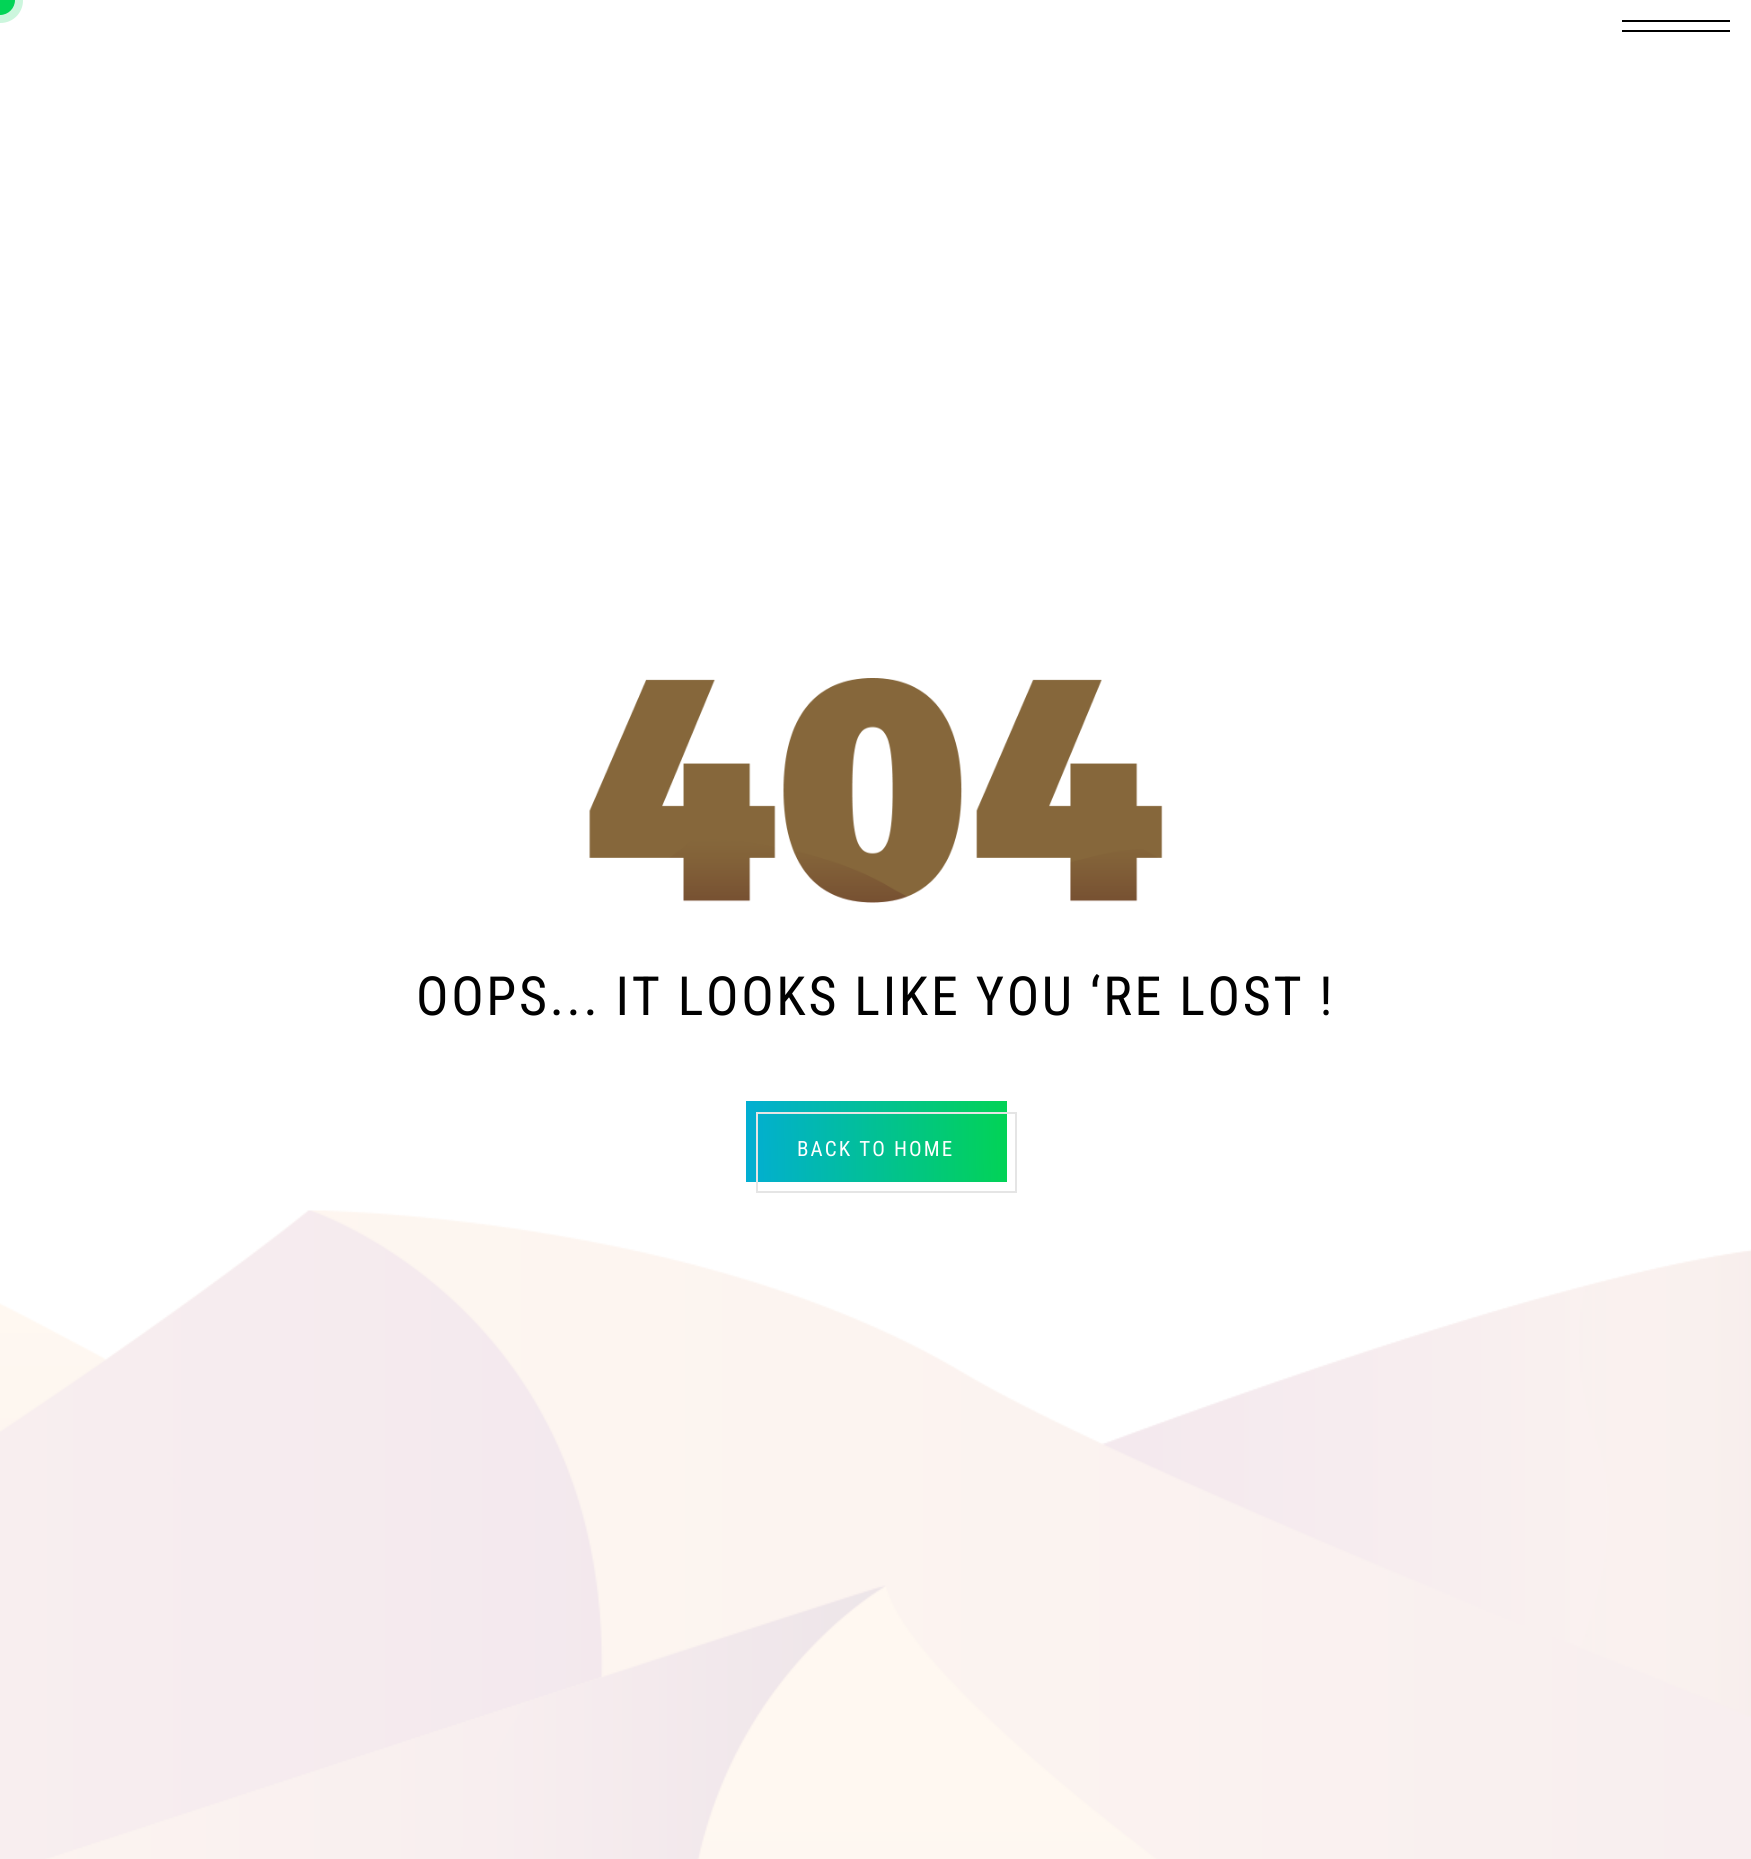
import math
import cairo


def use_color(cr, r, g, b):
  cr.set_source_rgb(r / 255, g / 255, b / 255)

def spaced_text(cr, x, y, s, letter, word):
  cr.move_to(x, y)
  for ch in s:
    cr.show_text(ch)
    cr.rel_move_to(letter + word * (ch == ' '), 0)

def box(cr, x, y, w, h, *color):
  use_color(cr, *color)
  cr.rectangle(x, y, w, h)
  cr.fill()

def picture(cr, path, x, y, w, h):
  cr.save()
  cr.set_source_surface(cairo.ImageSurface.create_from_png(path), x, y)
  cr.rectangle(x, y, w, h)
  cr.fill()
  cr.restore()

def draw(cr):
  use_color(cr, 255, 255, 255)
  cr.paint()
  use_color(cr, 2, 212, 86)
  cr.arc(0, 0, 15, 0, 2 * math.pi)
  cr.fill()
  cr.set_source_rgba(0.008, 0.831, 0.337, 0.2)
  cr.arc(0.5, 0.5, 22.5, 0, 2 * math.pi)
  cr.fill()
  box(cr, 1622, 20, 108, 2, 0, 0, 0)
  box(cr, 1622, 30, 108, 2, 0, 0, 0)
  picture(cr, "img_01.png", 0, 1210, 1751, 649)
  picture(cr, "img_02.png", 589, 678, 574, 225)
  gradient = cairo.LinearGradient(1007, 1139, 745, 1144)
  gradient.add_color_stop_rgba(0, 0.008, 0.827, 0.337, 1)
  gradient.add_color_stop_rgba(1, 0.008, 0.682, 0.827, 1)
  cr.set_source(gradient)
  cr.rectangle(746, 1101, 261, 81)
  cr.fill()
  cr.rectangle(757, 1113, 259, 79)
  use_color(cr, 229, 229, 229)
  cr.stroke()
  cr.select_font_face("Roboto Condensed")
  cr.set_font_size(54)
  use_color(cr, 1, 1, 1)
  spaced_text(cr, 416, 1015, "OOPS... IT LOOKS LIKE YOU ‘RE LOST !", 2.7, 0)
  cr.set_font_size(21)
  use_color(cr, 255, 255, 255)
  spaced_text(cr, 797, 1156, "BACK TO HOME", 2.1, 0)


surface = cairo.ImageSurface(cairo.FORMAT_RGB24, 1751, 1859)
cr = cairo.Context(surface)
options = cairo.FontOptions()
options.set_hint_metrics(cairo.HINT_METRICS_OFF)
options.set_hint_style(cairo.HINT_STYLE_NONE)
cr.set_font_options(options)
cr.set_miter_limit(4)
draw(cr)
surface.write_to_png("out.png")
